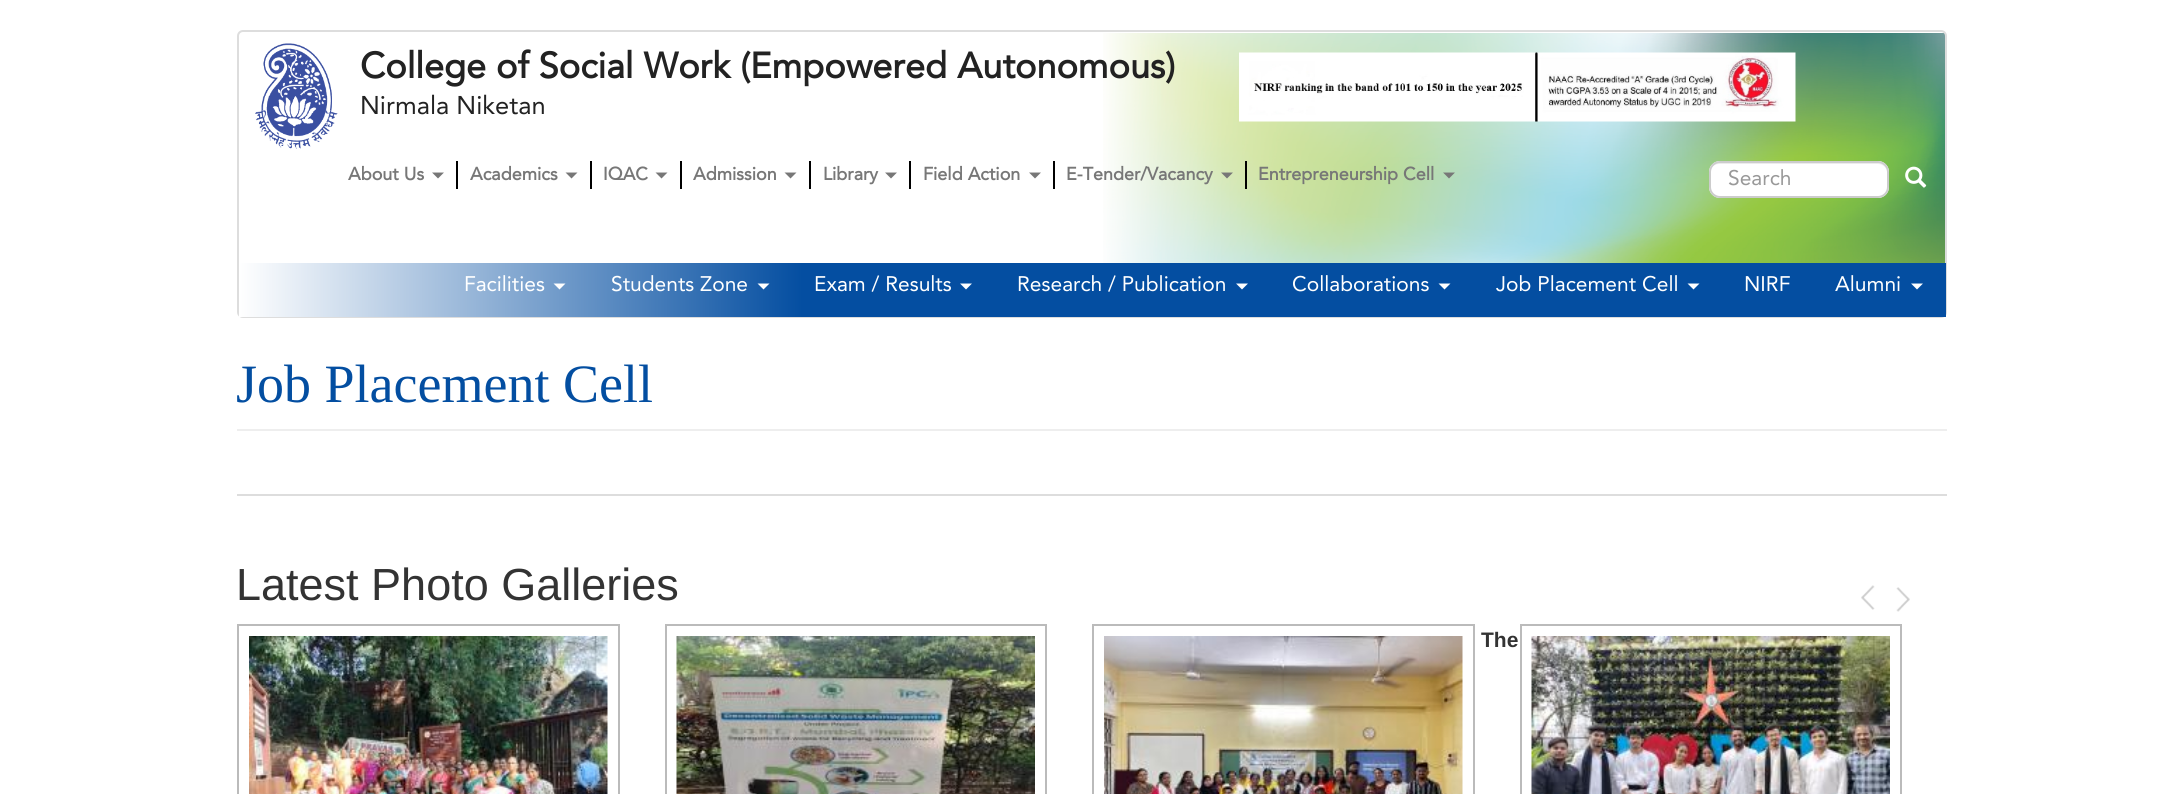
import math
import cairo


def use_color(cr, r, g, b):
  cr.set_source_rgb(r / 255, g / 255, b / 255)

def text(cr, x, y, s, family, size, color, bold=False, italic=False):
  cr.select_font_face(family, cairo.FONT_SLANT_ITALIC if italic else cairo.FONT_SLANT_NORMAL, cairo.FONT_WEIGHT_BOLD if bold else cairo.FONT_WEIGHT_NORMAL)
  cr.set_font_size(size)
  use_color(cr, *color)
  cr.move_to(x, y)
  cr.show_text(s)

def box(cr, x, y, w, h, *color):
  use_color(cr, *color)
  cr.rectangle(x, y, w, h)
  cr.fill()

def round_rect(cr, x, y, w, h, r):
  cr.new_sub_path()
  for i, (u, v) in enumerate([(x + w - r, y + h - r), (x + r, y + h - r), (x + r, y + r), (x + w - r, y + r)]):
    cr.arc(u, v, r, i * math.pi / 2, (i + 1) * math.pi / 2)
  cr.close_path()

def picture(cr, path, x, y, w, h):
  cr.save()
  cr.set_source_surface(cairo.ImageSurface.create_from_png(path), x, y)
  cr.rectangle(x, y, w, h)
  cr.fill()
  cr.restore()

def draw(cr):
  use_color(cr, 255, 255, 255)
  cr.paint()
  picture(cr, "img_01.png", 1103, 33, 842, 230)
  round_rect(cr, 238, 31, 1708, 286, 5)
  use_color(cr, 221, 221, 221)
  cr.stroke()
  picture(cr, "img_02.png", 255, 43, 83, 106)
  picture(cr, "img_03.png", 1239, 52, 557, 70)
  gradient = cairo.LinearGradient(239, 290, 1946, 289)
  gradient.add_color_stop_rgba(0, 1, 1, 1, 1)
  gradient.add_color_stop_rgba(0.33, 0.016, 0.306, 0.631, 1)
  gradient.add_color_stop_rgba(1, 0.016, 0.306, 0.631, 1)
  cr.set_source(gradient)
  cr.rectangle(239, 263, 1707, 54)
  cr.fill()
  use_color(cr, 255, 255, 255)
  cr.new_path()
  cr.move_to(553.5, 283.5)
  cr.line_to(565.5, 283.5)
  cr.line_to(559.5, 289.5)
  cr.close_path()
  cr.fill()
  cr.new_path()
  cr.move_to(757.5, 283.5)
  cr.line_to(769.5, 283.5)
  cr.line_to(763.5, 289.5)
  cr.close_path()
  cr.fill()
  cr.new_path()
  cr.move_to(960, 283.5)
  cr.line_to(972, 283.5)
  cr.line_to(966, 289.5)
  cr.close_path()
  cr.fill()
  cr.new_path()
  cr.move_to(1236, 283.5)
  cr.line_to(1248, 283.5)
  cr.line_to(1242, 289.5)
  cr.close_path()
  cr.fill()
  cr.new_path()
  cr.move_to(1438.5, 283.5)
  cr.line_to(1450.5, 283.5)
  cr.line_to(1444.5, 289.5)
  cr.close_path()
  cr.fill()
  cr.new_path()
  cr.move_to(1687.5, 283.5)
  cr.line_to(1699.5, 283.5)
  cr.line_to(1693.5, 289.5)
  cr.close_path()
  cr.fill()
  cr.new_path()
  cr.move_to(1911, 283.5)
  cr.line_to(1923, 283.5)
  cr.line_to(1917, 289.5)
  cr.close_path()
  cr.fill()
  box(cr, 456, 161, 2, 28, 0, 0, 0)
  use_color(cr, 119, 119, 119)
  cr.new_path()
  cr.move_to(432, 172.5)
  cr.line_to(444, 172.5)
  cr.line_to(438, 178.5)
  cr.close_path()
  cr.fill()
  box(cr, 590, 161, 2, 28, 0, 0, 0)
  use_color(cr, 119, 119, 119)
  cr.new_path()
  cr.move_to(565.5, 172.5)
  cr.line_to(577.5, 172.5)
  cr.line_to(571.5, 178.5)
  cr.close_path()
  cr.fill()
  box(cr, 680, 161, 2, 28, 0, 0, 0)
  use_color(cr, 119, 119, 119)
  cr.new_path()
  cr.move_to(655.5, 172.5)
  cr.line_to(667.5, 172.5)
  cr.line_to(661.5, 178.5)
  cr.close_path()
  cr.fill()
  box(cr, 809, 161, 2, 28, 0, 0, 0)
  use_color(cr, 119, 119, 119)
  cr.new_path()
  cr.move_to(784.5, 172.5)
  cr.line_to(796.5, 172.5)
  cr.line_to(790.5, 178.5)
  cr.close_path()
  cr.fill()
  box(cr, 909, 161, 2, 28, 0, 0, 0)
  use_color(cr, 119, 119, 119)
  cr.new_path()
  cr.move_to(885, 172.5)
  cr.line_to(897, 172.5)
  cr.line_to(891, 178.5)
  cr.close_path()
  cr.fill()
  box(cr, 1053, 161, 2, 28, 0, 0, 0)
  use_color(cr, 119, 119, 119)
  cr.new_path()
  cr.move_to(1029, 172.5)
  cr.line_to(1041, 172.5)
  cr.line_to(1035, 178.5)
  cr.close_path()
  cr.fill()
  box(cr, 1245, 161, 2, 28, 0, 0, 0)
  use_color(cr, 119, 119, 119)
  cr.new_path()
  cr.move_to(1221, 172.5)
  cr.line_to(1233, 172.5)
  cr.line_to(1227, 178.5)
  cr.close_path()
  cr.fill()
  cr.new_path()
  cr.move_to(1443, 172.5)
  cr.line_to(1455, 172.5)
  cr.line_to(1449, 178.5)
  cr.close_path()
  cr.fill()
  use_color(cr, 255, 255, 255)
  round_rect(cr, 1709, 161, 180, 37, 11)
  cr.fill()
  use_color(cr, 236, 236, 236)
  cr.new_path()
  cr.move_to(1719, 164)
  cr.line_to(1878, 164)
  cr.curve_to(1883, 164, 1887, 168, 1887, 172)
  cr.line_to(1887, 171)
  cr.curve_to(1887, 166, 1883, 162, 1878, 162)
  cr.line_to(1719, 162)
  cr.curve_to(1714, 162, 1710, 166, 1710, 171)
  cr.line_to(1710, 172)
  cr.curve_to(1710, 168, 1714, 164, 1719, 164)
  cr.close_path()
  cr.fill()
  round_rect(cr, 1710, 162, 178, 35, 10)
  use_color(cr, 204, 204, 204)
  cr.stroke()
  picture(cr, "img_04.png", 1905, 166, 22, 22)
  box(cr, 237, 429, 1710, 2, 238, 238, 238)
  box(cr, 237, 494, 1710, 2, 221, 221, 221)
  picture(cr, "img_05.png", 1861, 585, 14, 25)
  picture(cr, "img_06.png", 1896, 587, 14, 25)
  cr.rectangle(238, 625, 381, 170)
  use_color(cr, 187, 187, 187)
  cr.stroke()
  picture(cr, "img_07.png", 249, 636, 359, 158)
  cr.rectangle(666, 625, 380, 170)
  cr.stroke()
  picture(cr, "img_08.png", 676, 636, 359, 158)
  cr.rectangle(1093, 625, 381, 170)
  cr.stroke()
  picture(cr, "img_09.png", 1104, 636, 359, 158)
  cr.rectangle(1521, 625, 380, 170)
  cr.stroke()
  picture(cr, "img_10.png", 1531, 636, 359, 158)
  text(cr, 360, 78, "College of Social Work (Empowered Autonomous)", "Avenir", 36, (34, 34, 34), bold=True)
  text(cr, 360, 114, "Nirmala Niketan", "Avenir", 25.5, (34, 34, 34))
  text(cr, 464, 291, "Facilities", "Avenir", 21, (255, 255, 255))
  text(cr, 611, 291, "Students Zone", "Avenir", 21, (255, 255, 255))
  text(cr, 814, 291, "Exam / Results", "Avenir", 21, (255, 255, 255))
  text(cr, 1017, 291, "Research / Publication", "Avenir", 21, (255, 255, 255))
  text(cr, 1292, 291, "Collaborations", "Avenir", 21, (255, 255, 255))
  text(cr, 1496, 291, "Job Placement Cell", "Avenir", 21, (255, 255, 255))
  text(cr, 1744, 291, "NIRF", "Avenir", 21, (255, 255, 255))
  text(cr, 1835, 291, "Alumni", "Avenir", 21, (255, 255, 255))
  text(cr, 348, 180, "About Us", "Avenir", 18, (119, 119, 119), bold=True)
  text(cr, 470, 180, "Academics", "Avenir", 18, (119, 119, 119), bold=True)
  text(cr, 603, 180, "IQAC", "Avenir", 18, (119, 119, 119), bold=True)
  text(cr, 693, 180, "Admission", "Avenir", 18, (119, 119, 119), bold=True)
  text(cr, 823, 180, "Library", "Avenir", 18, (119, 119, 119), bold=True)
  text(cr, 923, 180, "Field Action", "Avenir", 18, (119, 119, 119), bold=True)
  text(cr, 1066, 180, "E-Tender/Vacancy", "Avenir", 18, (119, 119, 119), bold=True)
  text(cr, 1258, 180, "Entrepreneurship Cell", "Avenir", 18, (119, 119, 119), bold=True)
  text(cr, 1728, 185, "Search", "Avenir", 21, (153, 153, 153))
  text(cr, 236, 402, "Job Placement Cell", "Tinos", 54, (3, 78, 161))
  text(cr, 236, 600, "Latest Photo Galleries", "Liberation Sans", 45, (51, 51, 51))
  text(cr, 1481, 647, "The", "Liberation Sans", 21, (51, 51, 51), bold=True)


surface = cairo.ImageSurface(cairo.FORMAT_RGB24, 2182, 794)
cr = cairo.Context(surface)
options = cairo.FontOptions()
options.set_hint_metrics(cairo.HINT_METRICS_OFF)
options.set_hint_style(cairo.HINT_STYLE_NONE)
cr.set_font_options(options)
cr.set_miter_limit(4)
draw(cr)
surface.write_to_png("out.png")
